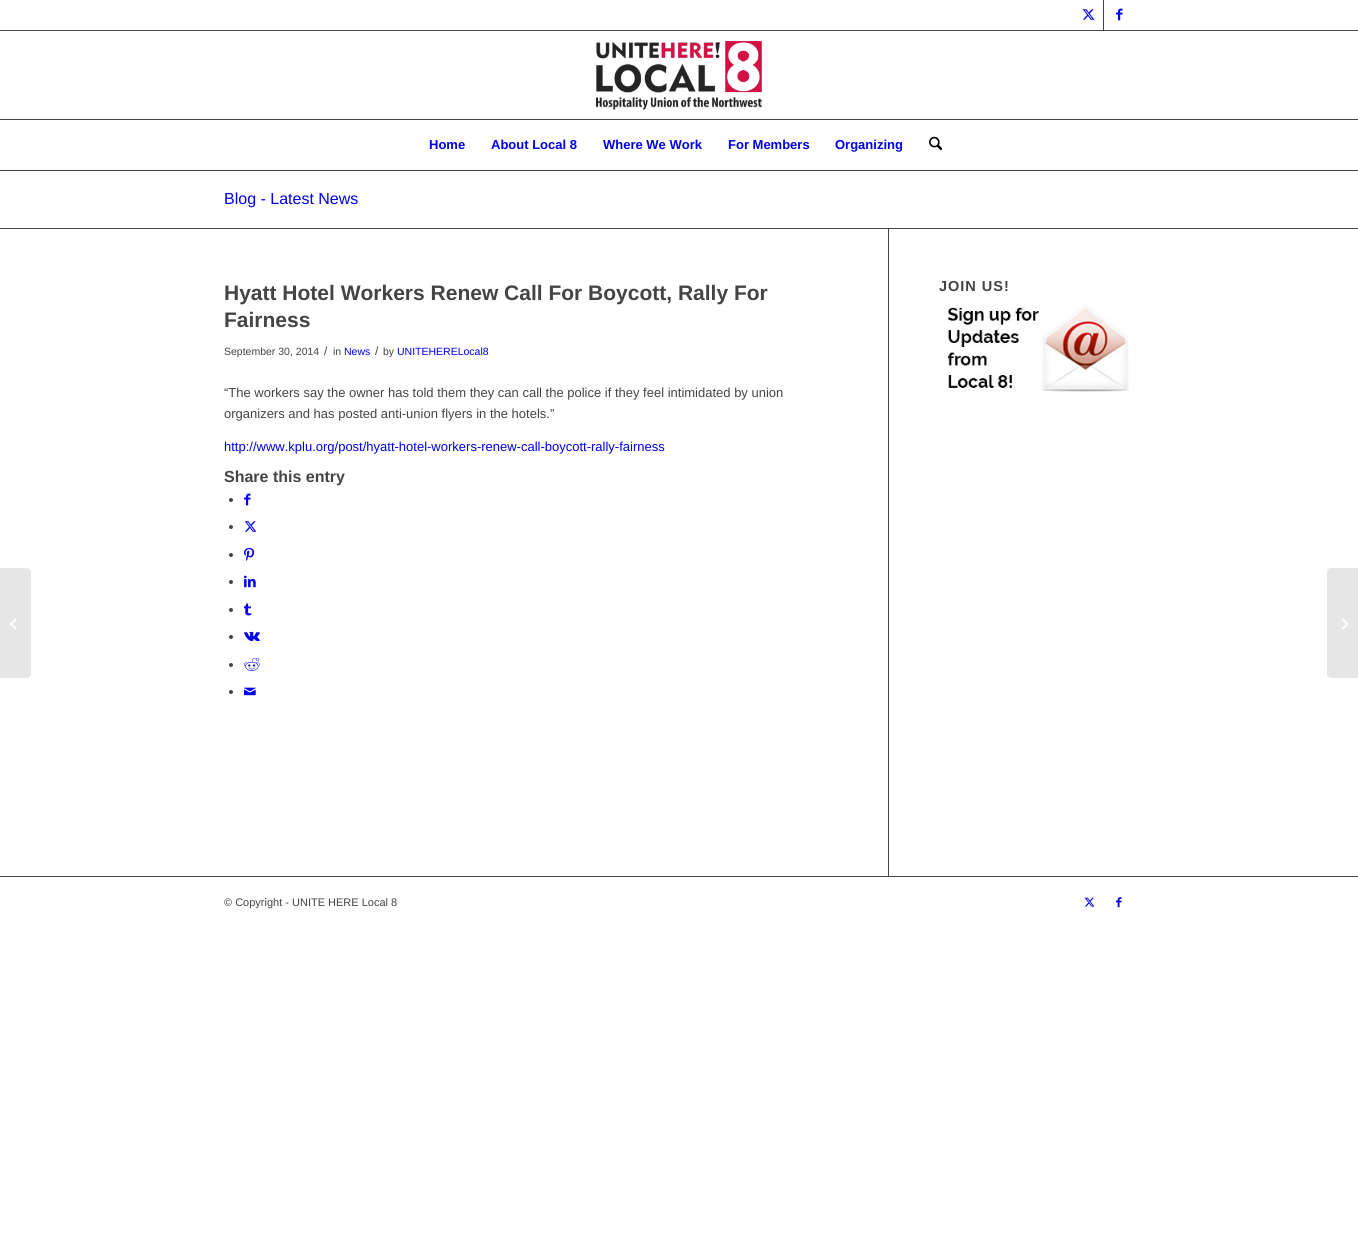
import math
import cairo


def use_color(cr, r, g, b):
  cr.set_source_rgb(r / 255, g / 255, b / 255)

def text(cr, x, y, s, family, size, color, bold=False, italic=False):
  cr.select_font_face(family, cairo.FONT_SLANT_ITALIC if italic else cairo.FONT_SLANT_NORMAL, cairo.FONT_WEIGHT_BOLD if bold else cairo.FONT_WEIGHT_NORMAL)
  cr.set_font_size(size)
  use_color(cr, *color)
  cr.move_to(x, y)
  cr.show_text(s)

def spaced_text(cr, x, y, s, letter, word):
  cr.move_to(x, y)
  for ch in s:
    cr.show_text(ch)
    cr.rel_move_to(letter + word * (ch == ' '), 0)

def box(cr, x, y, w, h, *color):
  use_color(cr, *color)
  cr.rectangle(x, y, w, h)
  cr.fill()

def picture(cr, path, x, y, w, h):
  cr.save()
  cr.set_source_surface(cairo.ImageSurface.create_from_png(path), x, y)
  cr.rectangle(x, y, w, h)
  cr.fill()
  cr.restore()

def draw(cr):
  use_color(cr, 255, 255, 255)
  cr.paint()
  box(cr, 1103, 0, 1, 30, 68, 68, 68)
  picture(cr, "img_01.png", 1082, 9, 13, 11)
  picture(cr, "img_02.png", 1116, 8, 7, 13)
  box(cr, 0, 30, 1358, 1, 68, 68, 68)
  picture(cr, "img_03.png", 596, 41, 166, 70)
  box(cr, 0, 119, 1358, 1, 68, 68, 68)
  picture(cr, "img_04.png", 929, 136, 13, 15)
  use_color(cr, 230, 230, 230)
  cr.new_path()
  cr.move_to(0, 568)
  cr.line_to(27, 568)
  cr.curve_to(29, 568, 31, 570, 31, 572)
  cr.line_to(31, 674)
  cr.curve_to(31, 676, 29, 678, 27, 678)
  cr.line_to(0, 678)
  cr.close_path()
  cr.fill()
  picture(cr, "img_05.png", 10, 618, 6, 12)
  box(cr, 0, 170, 1358, 1, 68, 68, 68)
  box(cr, 0, 228, 1358, 1, 68, 68, 68)
  box(cr, 888, 229, 1, 647, 68, 68, 68)
  cr.arc(231, 500, 2, 0, 2 * math.pi)
  cr.fill()
  picture(cr, "img_02.png", 244, 493, 7, 13)
  cr.arc(231, 527, 2, 0, 2 * math.pi)
  cr.fill()
  picture(cr, "img_01.png", 244, 521, 13, 11)
  cr.arc(231, 555, 2, 0, 2 * math.pi)
  cr.fill()
  picture(cr, "img_06.png", 244, 547, 11, 14)
  cr.arc(231, 582, 2, 0, 2 * math.pi)
  cr.fill()
  picture(cr, "img_07.png", 244, 575, 12, 13)
  cr.arc(231, 610, 2, 0, 2 * math.pi)
  cr.fill()
  picture(cr, "img_08.png", 244, 603, 8, 13)
  cr.arc(231, 637, 2, 0, 2 * math.pi)
  cr.fill()
  picture(cr, "img_09.png", 244, 631, 16, 10)
  cr.arc(231, 665, 2, 0, 2 * math.pi)
  cr.fill()
  picture(cr, "img_10.png", 244, 658, 16, 13)
  cr.arc(231, 692, 2, 0, 2 * math.pi)
  cr.fill()
  picture(cr, "img_11.png", 244, 687, 12, 9)
  picture(cr, "img_12.png", 947, 304, 183, 88)
  box(cr, 0, 876, 1358, 1, 68, 68, 68)
  picture(cr, "img_13.png", 1084, 897, 11, 10)
  picture(cr, "img_14.png", 1116, 897, 6, 11)
  use_color(cr, 230, 230, 230)
  cr.new_path()
  cr.move_to(1331, 568)
  cr.line_to(1358, 568)
  cr.line_to(1358, 678)
  cr.line_to(1331, 678)
  cr.curve_to(1329, 678, 1327, 676, 1327, 674)
  cr.line_to(1327, 572)
  cr.curve_to(1327, 570, 1329, 568, 1331, 568)
  cr.close_path()
  cr.fill()
  picture(cr, "img_15.png", 1342, 618, 6, 12)
  text(cr, 429, 149, "Home", "Liberation Sans", 13, (0, 0, 238), bold=True)
  text(cr, 491, 149, "About Local 8", "Liberation Sans", 13, (0, 0, 238), bold=True)
  text(cr, 603, 149, "Where We Work", "Liberation Sans", 13, (0, 0, 238), bold=True)
  text(cr, 728, 149, "For Members", "Liberation Sans", 13, (0, 0, 238), bold=True)
  text(cr, 835, 149, "Organizing", "Liberation Sans", 13, (0, 0, 238), bold=True)
  text(cr, 224, 204, "Blog - Latest News", "Liberation Sans", 16, (0, 0, 238))
  text(cr, 224, 300, "Hyatt Hotel Workers Renew Call For Boycott, Rally For", "Liberation Sans", 21, (68, 68, 68), bold=True)
  text(cr, 224, 327, "Fairness", "Liberation Sans", 21, (68, 68, 68), bold=True)
  text(cr, 224, 355, "September 30, 2014", "Liberation Sans", 10.5, (68, 68, 68))
  text(cr, 324, 355, "/", "Liberation Sans", 12, (68, 68, 68))
  text(cr, 333, 355, "in", "Liberation Sans", 10.5, (68, 68, 68))
  text(cr, 344, 355, "News", "Liberation Sans", 10.5, (0, 0, 238))
  text(cr, 375, 355, "/", "Liberation Sans", 12, (68, 68, 68))
  text(cr, 383, 355, "by", "Liberation Sans", 10.5, (68, 68, 68))
  text(cr, 397, 355, "UNITEHERELocal8", "Liberation Sans", 10.5, (0, 0, 238))
  text(cr, 224, 397, "“The workers say the owner has told them they can call the police if they feel intimidated by union", "Liberation Sans", 13, (68, 68, 68))
  text(cr, 224, 418, "organizers and has posted anti-union flyers in the hotels.”", "Liberation Sans", 13, (68, 68, 68))
  text(cr, 224, 451, "http://www.kplu.org/post/hyatt-hotel-workers-renew-call-boycott-rally-fairness", "Liberation Sans", 13, (0, 0, 238))
  text(cr, 224, 482, "Share this entry", "Liberation Sans", 16, (68, 68, 68), bold=True)
  cr.set_font_size(14.5)
  spaced_text(cr, 939, 291, "JOIN US!", 1, 0)
  text(cr, 224, 906, "© Copyright - UNITE HERE Local 8", "Liberation Sans", 11, (68, 68, 68))


surface = cairo.ImageSurface(cairo.FORMAT_RGB24, 1358, 1246)
cr = cairo.Context(surface)
options = cairo.FontOptions()
options.set_hint_metrics(cairo.HINT_METRICS_OFF)
options.set_hint_style(cairo.HINT_STYLE_NONE)
cr.set_font_options(options)
cr.set_miter_limit(4)
draw(cr)
surface.write_to_png("out.png")
